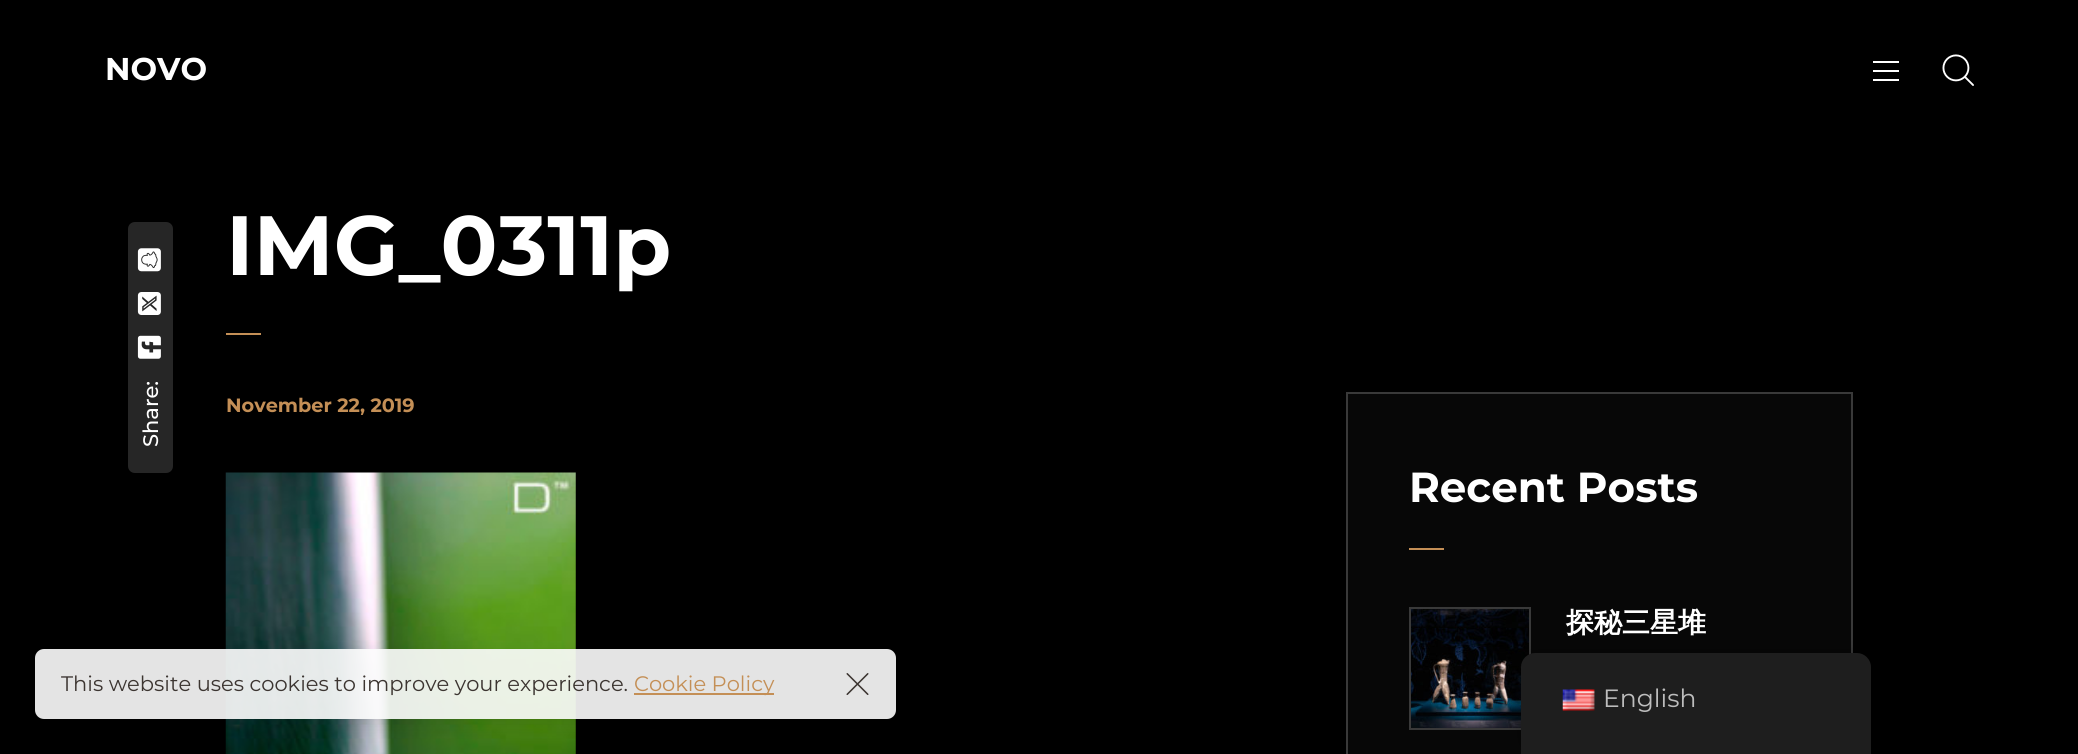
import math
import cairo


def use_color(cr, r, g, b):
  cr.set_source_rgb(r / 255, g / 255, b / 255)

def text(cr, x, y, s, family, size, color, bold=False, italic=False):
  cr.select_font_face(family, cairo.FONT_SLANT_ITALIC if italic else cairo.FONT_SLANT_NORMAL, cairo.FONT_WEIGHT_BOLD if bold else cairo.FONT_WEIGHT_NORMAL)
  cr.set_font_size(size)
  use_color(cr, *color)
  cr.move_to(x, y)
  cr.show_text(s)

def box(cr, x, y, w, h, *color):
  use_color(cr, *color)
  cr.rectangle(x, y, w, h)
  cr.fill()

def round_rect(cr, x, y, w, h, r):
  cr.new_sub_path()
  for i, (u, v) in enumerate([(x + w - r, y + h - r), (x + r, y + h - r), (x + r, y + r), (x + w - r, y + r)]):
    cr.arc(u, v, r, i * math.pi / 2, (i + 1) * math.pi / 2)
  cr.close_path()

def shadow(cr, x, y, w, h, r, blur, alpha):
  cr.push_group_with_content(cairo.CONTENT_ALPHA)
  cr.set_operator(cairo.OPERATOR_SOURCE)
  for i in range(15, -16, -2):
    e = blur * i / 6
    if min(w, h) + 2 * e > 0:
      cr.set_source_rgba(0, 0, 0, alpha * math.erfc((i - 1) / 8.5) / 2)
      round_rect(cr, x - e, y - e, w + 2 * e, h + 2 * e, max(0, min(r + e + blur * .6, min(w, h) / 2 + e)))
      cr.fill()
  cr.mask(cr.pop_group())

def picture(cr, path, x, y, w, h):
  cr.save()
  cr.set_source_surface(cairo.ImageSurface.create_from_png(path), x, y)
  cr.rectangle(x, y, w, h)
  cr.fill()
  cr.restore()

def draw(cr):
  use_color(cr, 0, 0, 0)
  cr.paint()
  box(cr, 1873, 61, 26, 2, 255, 255, 255)
  box(cr, 1873, 70, 26, 2, 255, 255, 255)
  box(cr, 1873, 79, 26, 2, 255, 255, 255)
  picture(cr, "img_01.png", 1942, 54, 32, 32)
  box(cr, 226, 333, 35, 2, 196, 143, 86)
  use_color(cr, 38, 38, 38)
  cr.new_path()
  cr.move_to(128, 466)
  cr.line_to(128, 229)
  cr.curve_to(128, 225, 131, 222, 135, 222)
  cr.line_to(166, 222)
  cr.curve_to(170, 222, 173, 225, 173, 229)
  cr.line_to(173, 466)
  cr.curve_to(173, 470, 170, 473, 166, 473)
  cr.line_to(135, 473)
  cr.curve_to(131, 473, 128, 470, 128, 466)
  cr.close_path()
  cr.fill()
  picture(cr, "img_02.png", 137, 248, 24, 24)
  picture(cr, "img_03.png", 137, 292, 24, 23)
  picture(cr, "img_04.png", 137, 335, 24, 24)
  picture(cr, "img_05.png", 225, 472, 351, 282)
  use_color(cr, 7, 7, 7)
  cr.rectangle(1347, 393, 505, 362)
  cr.fill_preserve()
  use_color(cr, 57, 57, 57)
  cr.stroke()
  box(cr, 1409, 548, 35, 2, 196, 143, 86)
  picture(cr, "img_06.png", 1411, 609, 118, 119)
  cr.rectangle(1410, 608, 120, 121)
  use_color(cr, 57, 57, 57)
  cr.stroke()
  cr.save()
  cr.set_fill_rule(cairo.FILL_RULE_EVEN_ODD)
  cr.new_path()
  cr.move_to(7, 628)
  cr.line_to(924, 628)
  cr.line_to(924, 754)
  cr.line_to(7, 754)
  cr.close_path()
  cr.move_to(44, 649)
  cr.line_to(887, 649)
  cr.curve_to(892, 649, 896, 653, 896, 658)
  cr.line_to(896, 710)
  cr.curve_to(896, 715, 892, 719, 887, 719)
  cr.line_to(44, 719)
  cr.curve_to(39, 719, 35, 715, 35, 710)
  cr.line_to(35, 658)
  cr.curve_to(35, 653, 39, 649, 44, 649)
  cr.close_path()
  cr.clip()
  use_color(cr, 0, 0, 0)
  shadow(cr, 35, 656, 861, 70, 9, 9, 0.1)
  cr.restore()
  cr.set_source_rgba(0.992, 0.992, 0.992, 0.9)
  round_rect(cr, 35, 649, 861, 70, 9)
  cr.fill()
  box(cr, 634, 693, 140, 2, 196, 143, 86)
  picture(cr, "img_07.png", 846, 673, 23, 22)
  use_color(cr, 0, 0, 0)
  shadow(cr, 1521, 653, 350, 101, 14, 7, 0.25)
  use_color(cr, 30, 30, 30)
  cr.new_path()
  cr.move_to(1535, 653)
  cr.line_to(1857, 653)
  cr.curve_to(1864.5, 653, 1871, 659.5, 1871, 667)
  cr.line_to(1871, 754)
  cr.line_to(1521, 754)
  cr.line_to(1521, 667)
  cr.curve_to(1521, 659.5, 1527.5, 653, 1535, 653)
  cr.close_path()
  cr.fill()
  picture(cr, "img_08.png", 1562, 689, 33, 22)
  text(cr, 105, 80, "NOVO", "Montserrat", 31.5, (255, 255, 255), bold=True)
  text(cr, 226, 275, "IMG_0311p", "Montserrat", 84, (255, 255, 255), bold=True)
  cr.save()
  cr.translate(158, 447)
  cr.rotate(-90 * math.pi / 180)
  text(cr, 0, 0, "Share:", "Montserrat Medium", 21, (255, 255, 255))
  cr.restore()
  text(cr, 226, 412, "November 22, 2019", "Montserrat", 19.25, (196, 143, 86), bold=True)
  text(cr, 1409, 502, "Recent Posts", "Montserrat", 42, (255, 255, 255), bold=True)
  text(cr, 1566, 632, "探秘三星堆", "WenQuanYi Zen Hei", 28, (255, 255, 255), bold=True)
  text(cr, 61, 691, "This website uses cookies to improve your experience.", "Montserrat", 21, (60, 53, 49))
  text(cr, 634, 691, "Cookie Policy", "Montserrat", 21, (196, 143, 86))
  text(cr, 1603, 707, "English", "Montserrat", 25, (189, 189, 189))


surface = cairo.ImageSurface(cairo.FORMAT_RGB24, 2078, 754)
cr = cairo.Context(surface)
options = cairo.FontOptions()
options.set_hint_metrics(cairo.HINT_METRICS_OFF)
options.set_hint_style(cairo.HINT_STYLE_NONE)
cr.set_font_options(options)
cr.set_miter_limit(4)
draw(cr)
surface.write_to_png("out.png")
